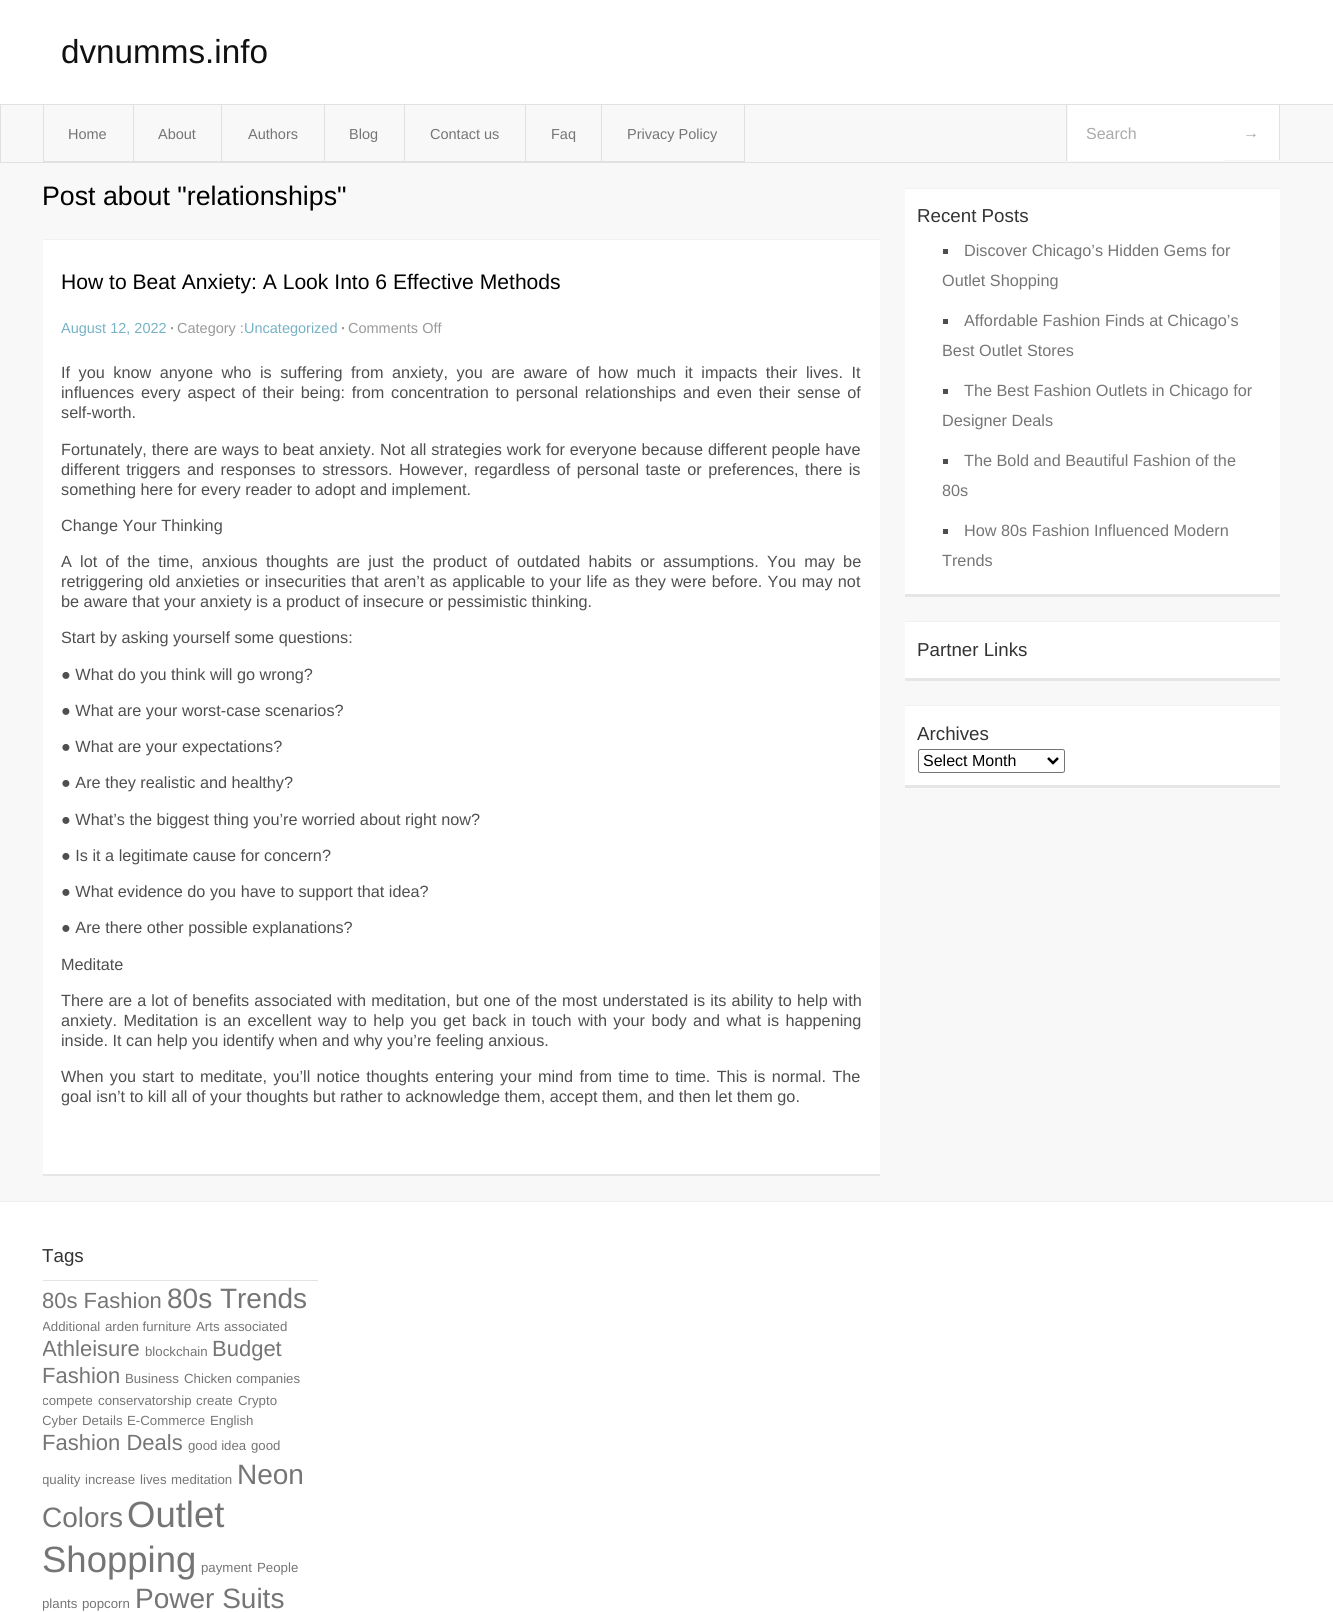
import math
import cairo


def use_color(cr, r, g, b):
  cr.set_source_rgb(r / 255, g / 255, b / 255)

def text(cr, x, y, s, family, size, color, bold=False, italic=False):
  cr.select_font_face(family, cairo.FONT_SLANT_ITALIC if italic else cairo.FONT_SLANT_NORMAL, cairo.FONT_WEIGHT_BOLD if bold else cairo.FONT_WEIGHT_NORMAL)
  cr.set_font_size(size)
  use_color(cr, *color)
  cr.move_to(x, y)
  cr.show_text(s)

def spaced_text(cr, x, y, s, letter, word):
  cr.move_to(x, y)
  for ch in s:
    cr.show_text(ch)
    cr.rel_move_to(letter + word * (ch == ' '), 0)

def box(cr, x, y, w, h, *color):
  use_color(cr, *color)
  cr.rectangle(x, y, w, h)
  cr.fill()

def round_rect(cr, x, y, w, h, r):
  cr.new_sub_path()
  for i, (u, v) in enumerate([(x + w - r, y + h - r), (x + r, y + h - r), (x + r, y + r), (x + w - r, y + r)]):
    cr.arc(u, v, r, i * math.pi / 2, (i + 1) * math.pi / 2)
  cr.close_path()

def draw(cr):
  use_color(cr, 248, 248, 248)
  cr.paint()
  box(cr, 0, 0, 1333, 104, 255, 255, 255)
  cr.rectangle(0.5, 104.5, 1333, 58)
  use_color(cr, 225, 225, 225)
  cr.set_line_width(1)
  cr.stroke()
  box(cr, 43, 105, 1, 58, 225, 225, 225)
  box(cr, 133, 105, 1, 58, 225, 225, 225)
  box(cr, 44, 161, 90, 1, 225, 225, 225)
  box(cr, 221, 105, 1, 58, 225, 225, 225)
  box(cr, 134, 161, 89, 1, 225, 225, 225)
  box(cr, 324, 105, 1, 58, 225, 225, 225)
  box(cr, 223, 161, 102, 1, 225, 225, 225)
  box(cr, 404, 105, 1, 58, 225, 225, 225)
  box(cr, 325, 161, 80, 1, 225, 225, 225)
  box(cr, 525, 105, 1, 58, 225, 225, 225)
  box(cr, 405, 161, 121, 1, 225, 225, 225)
  box(cr, 601, 105, 1, 58, 225, 225, 225)
  box(cr, 526, 161, 77, 1, 225, 225, 225)
  box(cr, 744, 105, 1, 58, 225, 225, 225)
  box(cr, 603, 161, 142, 1, 225, 225, 225)
  box(cr, 1068, 105, 156, 56, 255, 255, 255)
  box(cr, 1066, 105, 1, 56, 225, 225, 225)
  box(cr, 1224, 105, 55, 55, 255, 255, 255)
  box(cr, 1279, 105, 1, 55, 225, 225, 225)
  box(cr, 43, 240, 837, 934, 255, 255, 255)
  box(cr, 43, 239, 837, 1, 241, 241, 241)
  box(cr, 43, 1174, 837, 2, 230, 230, 230)
  box(cr, 905, 189, 375, 405, 255, 255, 255)
  box(cr, 905, 188, 375, 1, 241, 241, 241)
  box(cr, 905, 594, 375, 3, 230, 230, 230)
  box(cr, 943, 249, 5, 5, 78, 78, 78)
  box(cr, 943, 319, 5, 5, 78, 78, 78)
  box(cr, 943, 389, 5, 5, 78, 78, 78)
  box(cr, 943, 459, 5, 5, 78, 78, 78)
  box(cr, 943, 529, 5, 5, 78, 78, 78)
  box(cr, 905, 622, 375, 56, 255, 255, 255)
  box(cr, 905, 621, 375, 1, 241, 241, 241)
  box(cr, 905, 678, 375, 3, 230, 230, 230)
  box(cr, 905, 706, 375, 79, 255, 255, 255)
  box(cr, 905, 705, 375, 1, 241, 241, 241)
  box(cr, 905, 785, 375, 3, 230, 230, 230)
  round_rect(cr, 918.5, 749.5, 146, 23, 2)
  use_color(cr, 118, 118, 118)
  cr.stroke()
  cr.new_path()
  cr.move_to(1048, 758)
  cr.line_to(1053, 763)
  cr.line_to(1058, 758)
  use_color(cr, 0, 0, 0)
  cr.set_line_width(2.5)
  cr.stroke()
  box(cr, 0, 1202, 1333, 410, 255, 255, 255)
  box(cr, 0, 1201, 1333, 1, 238, 238, 238)
  box(cr, 43, 1280, 275, 1, 227, 227, 227)
  text(cr, 61, 63, "dvnumms.info", "Liberation Sans", 33.25, (17, 17, 17))
  text(cr, 68, 139, "Home", "Liberation Sans", 14.5, (118, 117, 117))
  text(cr, 158, 139, "About", "Liberation Sans", 14.5, (118, 117, 117))
  text(cr, 248, 139, "Authors", "Liberation Sans", 14.5, (118, 117, 117))
  text(cr, 349, 139, "Blog", "Liberation Sans", 14.5, (118, 117, 117))
  text(cr, 430, 139, "Contact us", "Liberation Sans", 14.5, (118, 117, 117))
  text(cr, 551, 139, "Faq", "Liberation Sans", 14.5, (118, 117, 117))
  text(cr, 627, 139, "Privacy Policy", "Liberation Sans", 14.5, (118, 117, 117))
  text(cr, 1086, 139, "Search", "Liberation Sans", 16, (170, 170, 170))
  text(cr, 1243, 138, "→", "Liberation Sans", 16, (170, 170, 170))
  text(cr, 42, 205, "Post about \"relationships\"", "Liberation Sans", 26.75, (0, 0, 0))
  text(cr, 61, 289, "How to Beat Anxiety: A Look Into 6 Effective Methods", "Liberation Sans", 21.1, (0, 0, 0))
  text(cr, 61, 333, "August 12, 2022", "Liberation Sans", 14.5, (118, 178, 196))
  text(cr, 170, 333, "·", "Liberation Sans", 14.5, (153, 153, 153), bold=True)
  text(cr, 177, 333, "Category :", "Liberation Sans", 14.5, (153, 153, 153))
  text(cr, 244, 333, "Uncategorized", "Liberation Sans", 14.5, (118, 178, 196))
  text(cr, 341, 333, "·", "Liberation Sans", 14.5, (153, 153, 153), bold=True)
  text(cr, 348, 333, "Comments Off", "Liberation Sans", 14.5, (153, 153, 153))
  cr.set_font_size(16.25)
  use_color(cr, 79, 79, 79)
  spaced_text(cr, 61, 378, "If you know anyone who is suffering from anxiety, you are aware of how much it impacts their lives. It", 0, 4)
  spaced_text(cr, 61, 398, "influences every aspect of their being: from concentration to personal relationships and even their sense of", 0, 2.25)
  text(cr, 61, 418, "self-worth.", "Liberation Sans", 16.25, (79, 79, 79))
  spaced_text(cr, 61, 455, "Fortunately, there are ways to beat anxiety. Not all strategies work for everyone because different people have", 0, 0.4)
  spaced_text(cr, 61, 475, "different triggers and responses to stressors. However, regardless of personal taste or preferences, there is", 0, 2)
  text(cr, 61, 495, "something here for every reader to adopt and implement.", "Liberation Sans", 16.25, (79, 79, 79))
  text(cr, 61, 531, "Change Your Thinking", "Liberation Sans", 16.25, (79, 79, 79))
  spaced_text(cr, 61, 567, "A lot of the time, anxious thoughts are just the product of outdated habits or assumptions. You may be", 0, 3.75)
  spaced_text(cr, 61, 587, "retriggering old anxieties or insecurities that aren’t as applicable to your life as they were before. You may not", 0, 0.8)
  text(cr, 61, 607, "be aware that your anxiety is a product of insecure or pessimistic thinking.", "Liberation Sans", 16.25, (79, 79, 79))
  text(cr, 61, 643, "Start by asking yourself some questions:", "Liberation Sans", 16.25, (79, 79, 79))
  text(cr, 61, 680, "● What do you think will go wrong?", "Liberation Sans", 16.25, (79, 79, 79))
  text(cr, 61, 716, "● What are your worst-case scenarios?", "Liberation Sans", 16.25, (79, 79, 79))
  text(cr, 61, 752, "● What are your expectations?", "Liberation Sans", 16.25, (79, 79, 79))
  text(cr, 61, 788, "● Are they realistic and healthy?", "Liberation Sans", 16.25, (79, 79, 79))
  text(cr, 61, 825, "● What’s the biggest thing you’re worried about right now?", "Liberation Sans", 16.25, (79, 79, 79))
  text(cr, 61, 861, "● Is it a legitimate cause for concern?", "Liberation Sans", 16.25, (79, 79, 79))
  text(cr, 61, 897, "● What evidence do you have to support that idea?", "Liberation Sans", 16.25, (79, 79, 79))
  text(cr, 61, 933, "● Are there other possible explanations?", "Liberation Sans", 16.25, (79, 79, 79))
  text(cr, 61, 970, "Meditate", "Liberation Sans", 16.25, (79, 79, 79))
  spaced_text(cr, 61, 1006, "There are a lot of benefits associated with meditation, but one of the most understated is its ability to help with", 0, 0.6)
  spaced_text(cr, 61, 1026, "anxiety. Meditation is an excellent way to help you get back in touch with your body and what is happening", 0, 1.9)
  text(cr, 61, 1046, "inside. It can help you identify when and why you’re feeling anxious.", "Liberation Sans", 16.25, (79, 79, 79))
  spaced_text(cr, 61, 1082, "When you start to meditate, you’ll notice thoughts entering your mind from time to time. This is normal. The", 0, 1.8)
  text(cr, 61, 1102, "goal isn’t to kill all of your thoughts but rather to acknowledge them, accept them, and then let them go.", "Liberation Sans", 16.25, (79, 79, 79))
  text(cr, 917, 222, "Recent Posts", "Liberation Sans", 18.75, (51, 51, 51))
  text(cr, 964, 256, "Discover Chicago’s Hidden Gems for", "Liberation Sans", 16.25, (118, 117, 117))
  text(cr, 942, 286, "Outlet Shopping", "Liberation Sans", 16.25, (118, 117, 117))
  text(cr, 964, 326, "Affordable Fashion Finds at Chicago’s", "Liberation Sans", 16.25, (118, 117, 117))
  text(cr, 942, 356, "Best Outlet Stores", "Liberation Sans", 16.25, (118, 117, 117))
  text(cr, 964, 396, "The Best Fashion Outlets in Chicago for", "Liberation Sans", 16.25, (118, 117, 117))
  text(cr, 942, 426, "Designer Deals", "Liberation Sans", 16.25, (118, 117, 117))
  text(cr, 964, 466, "The Bold and Beautiful Fashion of the", "Liberation Sans", 16.25, (118, 117, 117))
  text(cr, 942, 496, "80s", "Liberation Sans", 16.25, (118, 117, 117))
  text(cr, 964, 536, "How 80s Fashion Influenced Modern", "Liberation Sans", 16.25, (118, 117, 117))
  text(cr, 942, 566, "Trends", "Liberation Sans", 16.25, (118, 117, 117))
  text(cr, 917, 656, "Partner Links", "Liberation Sans", 18.75, (51, 51, 51))
  text(cr, 917, 740, "Archives", "Liberation Sans", 18.75, (51, 51, 51))
  text(cr, 923, 766, "Select Month", "Liberation Sans", 16, (0, 0, 0))
  text(cr, 42, 1262, "Tags", "Liberation Sans", 18.75, (51, 51, 51))
  text(cr, 42, 1308, "80s Fashion", "Liberation Sans", 22, (118, 117, 117))
  text(cr, 167, 1308, "80s Trends", "Liberation Sans", 28, (118, 117, 117))
  cr.save()
  cr.rectangle(43, 1203, 1250, 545)
  cr.clip()
  text(cr, 42, 1331, "Additional", "Liberation Sans", 13.25, (118, 117, 117))
  cr.restore()
  text(cr, 105, 1331, "arden furniture", "Liberation Sans", 13.25, (118, 117, 117))
  text(cr, 196, 1331, "Arts", "Liberation Sans", 13.25, (118, 117, 117))
  text(cr, 224, 1331, "associated", "Liberation Sans", 13.25, (118, 117, 117))
  cr.save()
  cr.rectangle(43, 1203, 1250, 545)
  cr.clip()
  text(cr, 42, 1356, "Athleisure", "Liberation Sans", 22, (118, 117, 117))
  cr.restore()
  text(cr, 145, 1356, "blockchain", "Liberation Sans", 13.25, (118, 117, 117))
  text(cr, 212, 1356, "Budget", "Liberation Sans", 22, (118, 117, 117))
  text(cr, 42, 1383, "Fashion", "Liberation Sans", 22, (118, 117, 117))
  text(cr, 125, 1383, "Business", "Liberation Sans", 13.25, (118, 117, 117))
  text(cr, 184, 1383, "Chicken", "Liberation Sans", 13.25, (118, 117, 117))
  text(cr, 236, 1383, "companies", "Liberation Sans", 13.25, (118, 117, 117))
  cr.save()
  cr.rectangle(43, 1203, 1250, 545)
  cr.clip()
  text(cr, 42, 1405, "compete", "Liberation Sans", 13.25, (118, 117, 117))
  cr.restore()
  text(cr, 98, 1405, "conservatorship", "Liberation Sans", 13.25, (118, 117, 117))
  text(cr, 196, 1405, "create", "Liberation Sans", 13.25, (118, 117, 117))
  text(cr, 238, 1405, "Crypto", "Liberation Sans", 13.25, (118, 117, 117))
  cr.save()
  cr.rectangle(43, 1203, 1250, 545)
  cr.clip()
  text(cr, 42, 1425, "Cyber", "Liberation Sans", 13.25, (118, 117, 117))
  cr.restore()
  text(cr, 82, 1425, "Details", "Liberation Sans", 13.25, (118, 117, 117))
  text(cr, 127, 1425, "E-Commerce", "Liberation Sans", 13.25, (118, 117, 117))
  text(cr, 210, 1425, "English", "Liberation Sans", 13.25, (118, 117, 117))
  text(cr, 42, 1450, "Fashion Deals", "Liberation Sans", 22, (118, 117, 117))
  text(cr, 188, 1450, "good idea", "Liberation Sans", 13.25, (118, 117, 117))
  text(cr, 251, 1450, "good", "Liberation Sans", 13.25, (118, 117, 117))
  cr.save()
  cr.rectangle(43, 1203, 1250, 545)
  cr.clip()
  text(cr, 42, 1484, "quality", "Liberation Sans", 13.25, (118, 117, 117))
  cr.restore()
  text(cr, 85, 1484, "increase", "Liberation Sans", 13.25, (118, 117, 117))
  text(cr, 140, 1484, "lives", "Liberation Sans", 13.25, (118, 117, 117))
  text(cr, 171, 1484, "meditation", "Liberation Sans", 13.25, (118, 117, 117))
  text(cr, 237, 1484, "Neon", "Liberation Sans", 28, (118, 117, 117))
  text(cr, 42, 1527, "Colors", "Liberation Sans", 28, (118, 117, 117))
  text(cr, 127, 1527, "Outlet", "Liberation Sans", 36.5, (118, 117, 117))
  text(cr, 42, 1572, "Shopping", "Liberation Sans", 36.5, (118, 117, 117))
  text(cr, 201, 1572, "payment", "Liberation Sans", 13.25, (118, 117, 117))
  text(cr, 257, 1572, "People", "Liberation Sans", 13.25, (118, 117, 117))
  cr.save()
  cr.rectangle(43, 1203, 1250, 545)
  cr.clip()
  text(cr, 42, 1608, "plants", "Liberation Sans", 13.25, (118, 117, 117))
  cr.restore()
  text(cr, 82, 1608, "popcorn", "Liberation Sans", 13.25, (118, 117, 117))
  text(cr, 135, 1608, "Power Suits", "Liberation Sans", 28, (118, 117, 117))


surface = cairo.ImageSurface(cairo.FORMAT_RGB24, 1333, 1612)
cr = cairo.Context(surface)
options = cairo.FontOptions()
options.set_hint_metrics(cairo.HINT_METRICS_OFF)
options.set_hint_style(cairo.HINT_STYLE_NONE)
cr.set_font_options(options)
cr.set_miter_limit(4)
draw(cr)
surface.write_to_png("out.png")
